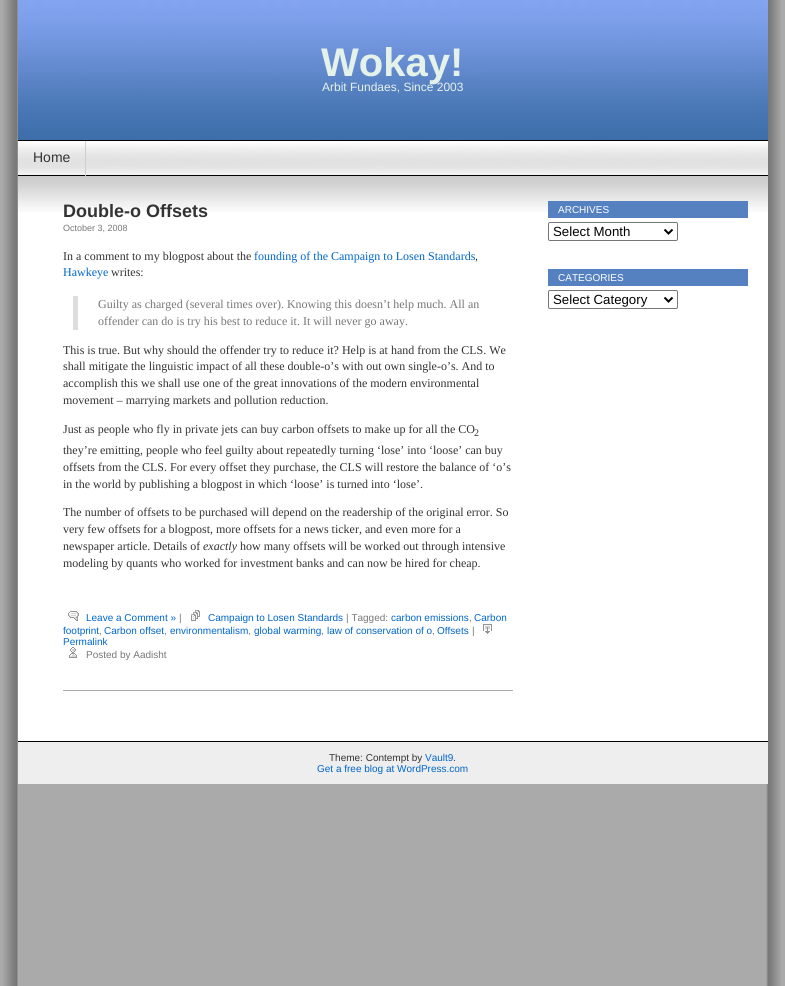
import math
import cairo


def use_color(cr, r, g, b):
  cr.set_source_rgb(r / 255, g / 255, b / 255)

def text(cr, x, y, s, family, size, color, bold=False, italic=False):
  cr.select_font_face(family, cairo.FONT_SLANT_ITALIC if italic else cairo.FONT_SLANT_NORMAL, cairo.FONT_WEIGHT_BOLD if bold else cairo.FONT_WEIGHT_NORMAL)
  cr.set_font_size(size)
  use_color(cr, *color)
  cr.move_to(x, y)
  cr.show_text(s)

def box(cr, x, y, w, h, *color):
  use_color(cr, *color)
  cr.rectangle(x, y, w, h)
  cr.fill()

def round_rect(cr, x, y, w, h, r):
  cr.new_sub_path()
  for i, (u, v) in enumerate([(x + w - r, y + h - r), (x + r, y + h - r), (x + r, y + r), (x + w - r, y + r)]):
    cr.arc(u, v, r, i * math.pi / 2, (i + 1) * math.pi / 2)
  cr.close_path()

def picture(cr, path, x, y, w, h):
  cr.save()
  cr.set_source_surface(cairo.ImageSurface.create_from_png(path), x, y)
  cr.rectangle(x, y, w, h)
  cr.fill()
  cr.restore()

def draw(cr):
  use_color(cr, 170, 170, 170)
  cr.paint()
  picture(cr, "img_01.png", 3, 0, 778, 986)
  box(cr, 18, 141, 750, 600, 255, 255, 255)
  box(cr, 18, 140, 750, 1, 0, 0, 0)
  picture(cr, "img_02.png", 18, 0, 750, 140)
  picture(cr, "img_03.png", 18, 143, 750, 32)
  box(cr, 18, 175, 750, 1, 0, 0, 0)
  box(cr, 85, 141, 1, 35, 206, 206, 206)
  picture(cr, "img_04.png", 18, 176, 750, 36)
  box(cr, 73, 296, 5, 34, 221, 221, 221)
  picture(cr, "img_05.png", 68, 611, 11, 10)
  picture(cr, "img_06.png", 191, 610, 9, 11)
  picture(cr, "img_07.png", 483, 624, 9, 10)
  picture(cr, "img_08.png", 69, 647, 8, 11)
  box(cr, 63, 690, 450, 1, 170, 170, 170)
  box(cr, 548, 201, 200, 17, 85, 129, 192)
  round_rect(cr, 548.5, 222.5, 129, 18, 1.5)
  use_color(cr, 118, 118, 118)
  cr.set_line_width(1)
  cr.stroke()
  cr.new_path()
  cr.move_to(664.5, 229.5)
  cr.line_to(668.5, 233.5)
  cr.line_to(672.5, 229.5)
  use_color(cr, 0, 0, 0)
  cr.set_line_width(2)
  cr.stroke()
  box(cr, 548, 269, 200, 17, 85, 129, 192)
  round_rect(cr, 548.5, 290.5, 129, 18, 1.5)
  use_color(cr, 118, 118, 118)
  cr.set_line_width(1)
  cr.stroke()
  cr.new_path()
  cr.move_to(664.5, 297.5)
  cr.line_to(668.5, 301.5)
  cr.line_to(672.5, 297.5)
  use_color(cr, 0, 0, 0)
  cr.set_line_width(2)
  cr.stroke()
  box(cr, 18, 742, 750, 42, 238, 238, 238)
  box(cr, 18, 741, 750, 1, 0, 0, 0)
  text(cr, 321, 76, "Wokay!", "Liberation Sans", 40, (229, 242, 233), bold=True)
  text(cr, 322, 91, "Arbit Fundaes, Since 2003", "Liberation Sans", 12, (229, 242, 233))
  text(cr, 33, 162, "Home", "Liberation Sans", 14, (51, 51, 51))
  text(cr, 63, 217, "Double-o Offsets", "Liberation Sans", 18, (51, 51, 51), bold=True)
  text(cr, 63, 231, "October 3, 2008", "Liberation Sans", 9, (119, 119, 119))
  text(cr, 63, 260, "In a comment to my blogpost about the", "Liberation Serif", 12, (51, 51, 51))
  text(cr, 254, 260, "founding of the Campaign to Losen Standards", "Liberation Serif", 12, (0, 102, 204))
  text(cr, 475, 260, ",", "Liberation Serif", 12, (51, 51, 51))
  text(cr, 63, 276, "Hawkeye", "Liberation Serif", 12, (0, 102, 204))
  text(cr, 111, 276, "writes:", "Liberation Serif", 12, (51, 51, 51))
  text(cr, 98, 308, "Guilty as charged (several times over). Knowing this doesn’t help much. All an", "Liberation Serif", 12, (119, 119, 119))
  text(cr, 98, 325, "offender can do is try his best to reduce it. It will never go away.", "Liberation Serif", 12, (119, 119, 119))
  text(cr, 63, 354, "This is true. But why should the offender try to reduce it? Help is at hand from the CLS. We", "Liberation Serif", 12, (51, 51, 51))
  text(cr, 63, 370, "shall mitigate the linguistic impact of all these double-o’s with out own single-o’s. And to", "Liberation Serif", 12, (51, 51, 51))
  text(cr, 63, 387, "accomplish this we shall use one of the great innovations of the modern environmental", "Liberation Serif", 12, (51, 51, 51))
  text(cr, 63, 404, "movement – marrying markets and pollution reduction.", "Liberation Serif", 12, (51, 51, 51))
  text(cr, 63, 433, "Just as people who fly in private jets can buy carbon offsets to make up for all the CO", "Liberation Serif", 12, (51, 51, 51))
  text(cr, 474, 436, "2", "Liberation Serif", 10, (51, 51, 51))
  text(cr, 63, 454, "they’re emitting, people who feel guilty about repeatedly turning ‘lose’ into ‘loose’ can buy", "Liberation Serif", 12, (51, 51, 51))
  text(cr, 63, 471, "offsets from the CLS. For every offset they purchase, the CLS will restore the balance of ‘o’s", "Liberation Serif", 12, (51, 51, 51))
  text(cr, 63, 488, "in the world by publishing a blogpost in which ‘loose’ is turned into ‘lose’.", "Liberation Serif", 12, (51, 51, 51))
  text(cr, 63, 516, "The number of offsets to be purchased will depend on the readership of the original error. So", "Liberation Serif", 12, (51, 51, 51))
  text(cr, 63, 533, "very few offsets for a blogpost, more offsets for a news ticker, and even more for a", "Liberation Serif", 12, (51, 51, 51))
  text(cr, 63, 550, "newspaper article. Details of", "Liberation Serif", 12, (51, 51, 51))
  text(cr, 203, 550, "exactly", "Liberation Serif", 12, (51, 51, 51), italic=True)
  text(cr, 240, 550, "how many offsets will be worked out through intensive", "Liberation Serif", 12, (51, 51, 51))
  text(cr, 63, 567, "modeling by quants who worked for investment banks and can now be hired for cheap.", "Liberation Serif", 12, (51, 51, 51))
  text(cr, 86, 621, "Leave a Comment »", "Liberation Sans", 10, (0, 102, 204))
  text(cr, 179, 621, "|", "Liberation Sans", 10, (119, 119, 119))
  text(cr, 208, 621, "Campaign to Losen Standards", "Liberation Sans", 10, (0, 102, 204))
  text(cr, 346, 621, "| Tagged:", "Liberation Sans", 10, (119, 119, 119))
  text(cr, 391, 621, "carbon emissions", "Liberation Sans", 10, (0, 102, 204))
  text(cr, 469, 621, ",", "Liberation Sans", 10, (119, 119, 119))
  text(cr, 474, 621, "Carbon", "Liberation Sans", 10, (0, 102, 204))
  text(cr, 63, 634, "footprint", "Liberation Sans", 10, (0, 102, 204))
  text(cr, 99, 634, ",", "Liberation Sans", 10, (119, 119, 119))
  text(cr, 104, 634, "Carbon offset", "Liberation Sans", 10, (0, 102, 204))
  text(cr, 164, 634, ",", "Liberation Sans", 10, (119, 119, 119))
  text(cr, 170, 634, "environmentalism", "Liberation Sans", 10, (0, 102, 204))
  text(cr, 248, 634, ",", "Liberation Sans", 10, (119, 119, 119))
  text(cr, 254, 634, "global warming", "Liberation Sans", 10, (0, 102, 204))
  text(cr, 321, 634, ",", "Liberation Sans", 10, (119, 119, 119))
  text(cr, 327, 634, "law of conservation of o", "Liberation Sans", 10, (0, 102, 204))
  text(cr, 432, 634, ",", "Liberation Sans", 10, (119, 119, 119))
  text(cr, 437, 634, "Offsets", "Liberation Sans", 10, (0, 102, 204))
  text(cr, 472, 634, "|", "Liberation Sans", 10, (119, 119, 119))
  text(cr, 63, 645, "Permalink", "Liberation Sans", 10, (0, 102, 204))
  text(cr, 86, 658, "Posted by Aadisht", "Liberation Sans", 10, (119, 119, 119))
  text(cr, 558, 213, "ARCHIVES", "Liberation Sans", 10, (255, 255, 255))
  text(cr, 553, 236, "Select Month", "Liberation Sans", 13.25, (0, 0, 0))
  text(cr, 558, 281, "CATEGORIES", "Liberation Sans", 10, (255, 255, 255))
  text(cr, 553, 304, "Select Category", "Liberation Sans", 13.25, (0, 0, 0))
  text(cr, 329, 761, "Theme: Contempt by", "Liberation Sans", 10, (51, 51, 51))
  text(cr, 425, 761, "Vault9", "Liberation Sans", 10, (0, 102, 204))
  text(cr, 453, 761, ".", "Liberation Sans", 10, (51, 51, 51))
  text(cr, 317, 772, "Get a free blog at WordPress.com", "Liberation Sans", 10, (0, 102, 204))


surface = cairo.ImageSurface(cairo.FORMAT_RGB24, 785, 986)
cr = cairo.Context(surface)
options = cairo.FontOptions()
options.set_hint_metrics(cairo.HINT_METRICS_OFF)
options.set_hint_style(cairo.HINT_STYLE_NONE)
cr.set_font_options(options)
cr.set_miter_limit(4)
draw(cr)
surface.write_to_png("out.png")
